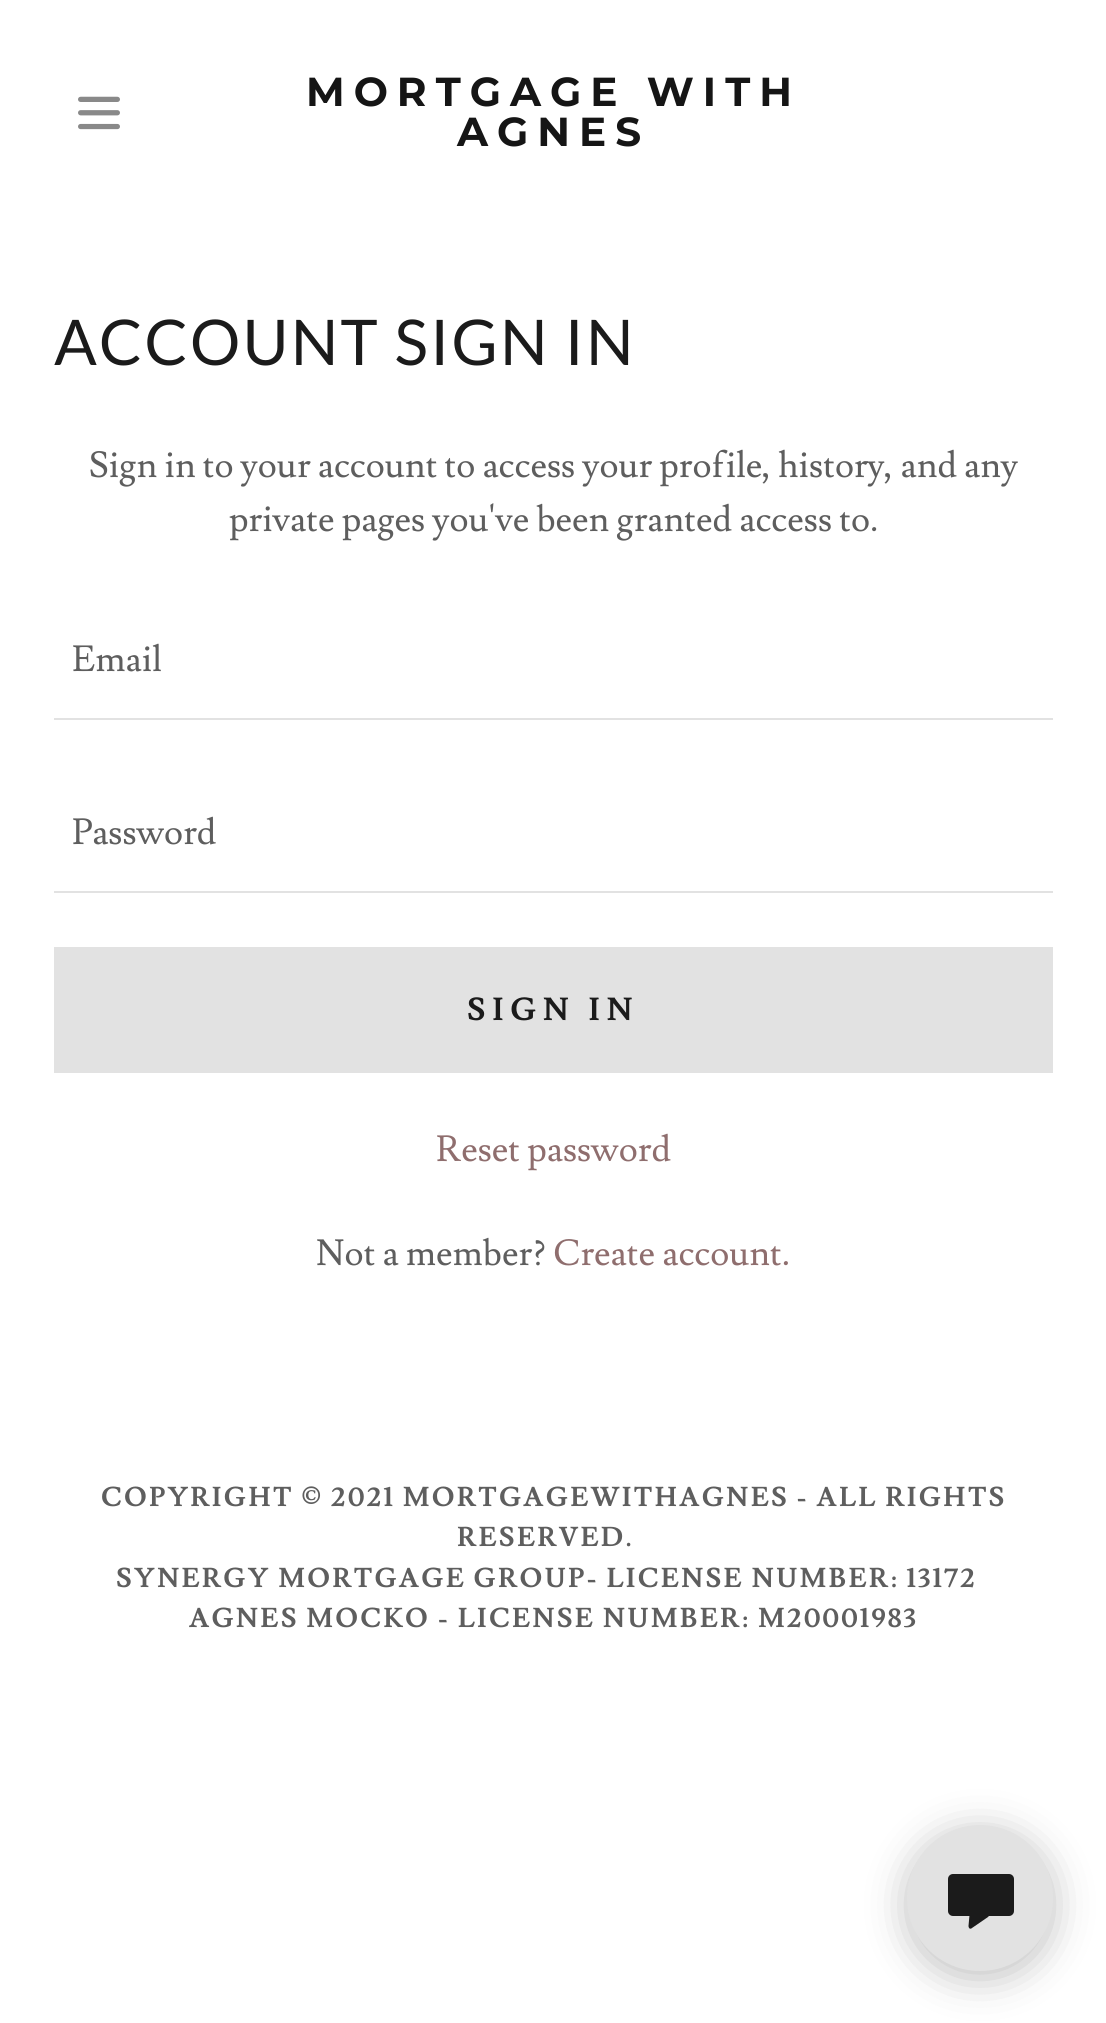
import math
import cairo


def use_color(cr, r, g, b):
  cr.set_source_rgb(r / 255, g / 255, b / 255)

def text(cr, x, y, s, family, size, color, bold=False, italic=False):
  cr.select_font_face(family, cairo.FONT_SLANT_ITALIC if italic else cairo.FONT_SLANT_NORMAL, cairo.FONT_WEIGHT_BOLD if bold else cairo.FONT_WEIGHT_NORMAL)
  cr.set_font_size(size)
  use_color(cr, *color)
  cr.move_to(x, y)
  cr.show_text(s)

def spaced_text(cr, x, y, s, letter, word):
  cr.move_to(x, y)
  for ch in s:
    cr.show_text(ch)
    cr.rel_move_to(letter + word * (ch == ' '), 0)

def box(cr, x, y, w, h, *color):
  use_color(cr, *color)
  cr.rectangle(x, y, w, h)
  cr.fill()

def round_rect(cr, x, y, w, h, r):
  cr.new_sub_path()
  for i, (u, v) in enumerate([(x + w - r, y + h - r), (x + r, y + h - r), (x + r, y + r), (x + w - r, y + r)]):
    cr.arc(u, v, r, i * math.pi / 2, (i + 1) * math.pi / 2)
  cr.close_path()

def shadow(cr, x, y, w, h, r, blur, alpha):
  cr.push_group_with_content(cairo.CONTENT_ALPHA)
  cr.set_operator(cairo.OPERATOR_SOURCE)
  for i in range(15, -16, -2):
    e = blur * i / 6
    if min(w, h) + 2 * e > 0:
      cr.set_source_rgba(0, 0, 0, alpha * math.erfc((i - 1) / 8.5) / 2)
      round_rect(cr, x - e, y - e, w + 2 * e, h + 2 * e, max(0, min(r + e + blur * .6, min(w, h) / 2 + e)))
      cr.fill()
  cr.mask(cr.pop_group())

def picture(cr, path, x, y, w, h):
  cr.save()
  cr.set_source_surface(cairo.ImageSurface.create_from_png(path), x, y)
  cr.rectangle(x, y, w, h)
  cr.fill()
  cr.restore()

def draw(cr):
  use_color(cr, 255, 255, 255)
  cr.paint()
  picture(cr, "img_01.png", 78, 96, 42, 34)
  box(cr, 54, 718, 999, 2, 226, 226, 226)
  box(cr, 54, 891, 999, 2, 226, 226, 226)
  box(cr, 54, 947, 999, 126, 226, 226, 226)
  use_color(cr, 0, 0, 0)
  shadow(cr, 907, 1832, 146, 146, 73, 20, 0.25)
  use_color(cr, 226, 226, 226)
  cr.arc(980, 1898, 73, 0, 2 * math.pi)
  cr.fill()
  use_color(cr, 27, 27, 27)
  round_rect(cr, 948, 1874, 66, 42, 5)
  cr.fill()
  cr.new_path()
  cr.move_to(968.5, 1926)
  cr.line_to(969.5, 1915)
  cr.curve_to(969.5, 1913.5, 970.5, 1912.5, 971.5, 1912.5)
  cr.line_to(986.5, 1912.5)
  cr.curve_to(989, 1912.5, 990, 1915.5, 988, 1917)
  cr.line_to(972, 1928)
  cr.curve_to(971.5, 1928.5, 970.5, 1929, 969.5, 1928.5)
  cr.curve_to(969, 1928, 968.5, 1927, 968.5, 1926)
  cr.close_path()
  cr.fill()
  cr.select_font_face("Montserrat", cairo.FONT_SLANT_NORMAL, cairo.FONT_WEIGHT_BOLD)
  cr.set_font_size(40.5)
  use_color(cr, 21, 21, 21)
  spaced_text(cr, 306, 106, "MORTGAGE WITH", 9, 0)
  spaced_text(cr, 457, 146, "AGNES", 9, 0)
  cr.select_font_face("Lato")
  cr.set_font_size(63)
  use_color(cr, 27, 27, 27)
  spaced_text(cr, 54, 365, "ACCOUNT SIGN IN", 2.25, 0)
  text(cr, 89, 477, "Sign in to your account to access your profile, history, and any", "Lusitana", 36, (94, 94, 94))
  text(cr, 229, 531, "private pages you've been granted access to.", "Lusitana", 36, (94, 94, 94))
  text(cr, 72, 671, "Email", "Lusitana", 36, (94, 94, 94))
  text(cr, 72, 844, "Password", "Lusitana", 36, (94, 94, 94))
  cr.select_font_face("Lusitana", cairo.FONT_SLANT_NORMAL, cairo.FONT_WEIGHT_BOLD)
  cr.set_font_size(31.5)
  use_color(cr, 27, 27, 27)
  spaced_text(cr, 467, 1020, "SIGN IN", 6.75, 0)
  text(cr, 436, 1161, "Reset password", "Lusitana", 36, (143, 110, 110))
  text(cr, 316, 1265, "Not a member?", "Lusitana", 36, (94, 94, 94))
  text(cr, 553, 1265, "Create account.", "Lusitana", 36, (143, 110, 110))
  cr.select_font_face("Lusitana", cairo.FONT_SLANT_NORMAL, cairo.FONT_WEIGHT_BOLD)
  cr.set_font_size(27)
  use_color(cr, 94, 94, 94)
  spaced_text(cr, 101, 1506, "COPYRIGHT © 2021 MORTGAGEWITHAGNES - ALL RIGHTS", 2.25, 0)
  spaced_text(cr, 457, 1546, "RESERVED.", 2.25, 0)
  spaced_text(cr, 116, 1587, "SYNERGY MORTGAGE GROUP- LICENSE NUMBER: 13172", 2.25, 0)
  spaced_text(cr, 189, 1627, "AGNES MOCKO - LICENSE NUMBER: M20001983", 2.25, 0)


surface = cairo.ImageSurface(cairo.FORMAT_RGB24, 1106, 2023)
cr = cairo.Context(surface)
options = cairo.FontOptions()
options.set_hint_metrics(cairo.HINT_METRICS_OFF)
options.set_hint_style(cairo.HINT_STYLE_NONE)
cr.set_font_options(options)
cr.set_miter_limit(4)
draw(cr)
surface.write_to_png("out.png")
